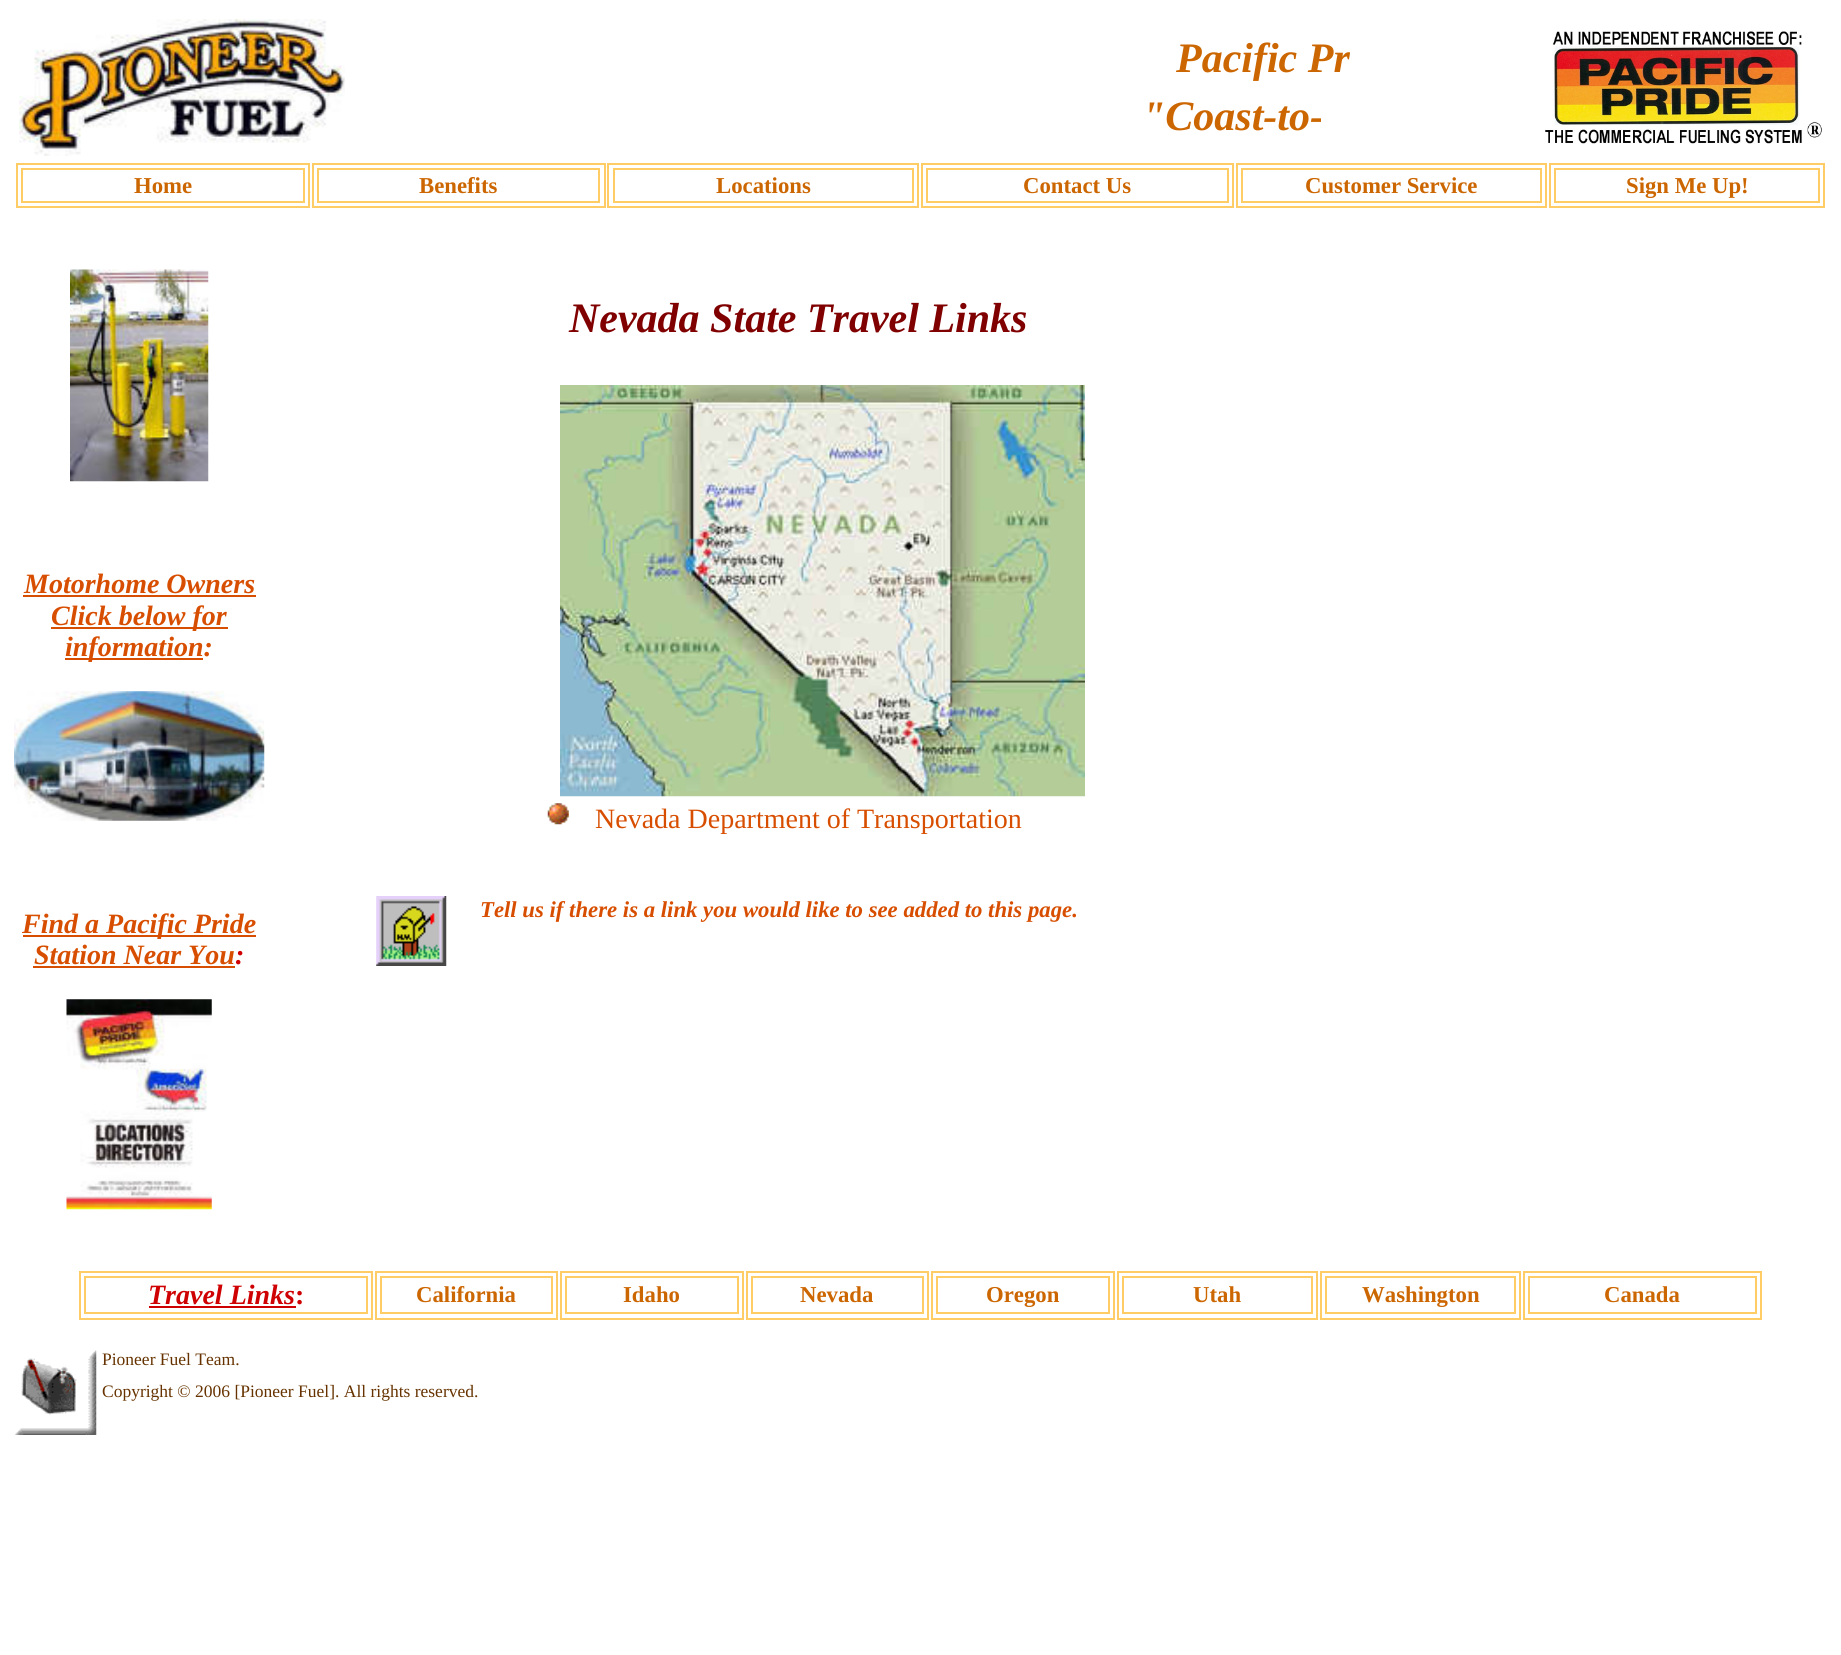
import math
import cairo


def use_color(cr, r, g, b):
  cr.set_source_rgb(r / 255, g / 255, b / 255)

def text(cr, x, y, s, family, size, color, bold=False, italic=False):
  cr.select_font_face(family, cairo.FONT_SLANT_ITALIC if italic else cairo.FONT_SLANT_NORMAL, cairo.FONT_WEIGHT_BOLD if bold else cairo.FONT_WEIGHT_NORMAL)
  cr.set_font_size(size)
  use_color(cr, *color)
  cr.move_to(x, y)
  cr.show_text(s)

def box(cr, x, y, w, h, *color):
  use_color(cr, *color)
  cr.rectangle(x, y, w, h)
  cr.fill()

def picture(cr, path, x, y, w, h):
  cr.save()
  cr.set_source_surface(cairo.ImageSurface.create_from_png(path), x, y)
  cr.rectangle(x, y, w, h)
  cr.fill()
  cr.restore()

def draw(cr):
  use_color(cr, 255, 255, 255)
  cr.paint()
  picture(cr, "img_01.png", 19, 19, 326, 137)
  picture(cr, "img_02.png", 1545, 31, 277, 113)
  cr.rectangle(17, 164, 292, 43)
  use_color(cr, 255, 204, 102)
  cr.stroke()
  cr.rectangle(22, 169, 282, 33)
  cr.stroke()
  cr.rectangle(313, 164, 292, 43)
  cr.stroke()
  cr.rectangle(318, 169, 281, 33)
  cr.stroke()
  cr.rectangle(608, 164, 310, 43)
  cr.stroke()
  cr.rectangle(614, 169, 299, 33)
  cr.stroke()
  cr.rectangle(922, 164, 311, 43)
  cr.stroke()
  cr.rectangle(927, 169, 301, 33)
  cr.stroke()
  cr.rectangle(1237, 164, 309, 43)
  cr.stroke()
  cr.rectangle(1242, 169, 299, 33)
  cr.stroke()
  cr.rectangle(1550, 164, 274, 43)
  cr.stroke()
  cr.rectangle(1555, 169, 264, 33)
  cr.stroke()
  picture(cr, "img_03.png", 70, 269, 139, 213)
  box(cr, 23, 595, 233, 2, 216, 78, 0)
  box(cr, 51, 627, 177, 2, 216, 78, 0)
  box(cr, 65, 658, 138, 2, 216, 78, 0)
  picture(cr, "img_04.png", 14, 691, 251, 130)
  box(cr, 23, 935, 233, 2, 216, 78, 0)
  box(cr, 33, 966, 202, 2, 216, 78, 0)
  picture(cr, "img_05.png", 66, 999, 146, 211)
  picture(cr, "img_06.png", 560, 385, 525, 412)
  picture(cr, "img_07.png", 547, 803, 22, 22)
  picture(cr, "img_08.png", 376, 896, 71, 70)
  cr.rectangle(80, 1272, 292, 47)
  use_color(cr, 255, 204, 102)
  cr.stroke()
  cr.rectangle(85, 1277, 282, 36)
  cr.stroke()
  box(cr, 149, 1306, 147, 2, 207, 0, 2)
  cr.rectangle(376, 1272, 181, 47)
  use_color(cr, 255, 204, 102)
  cr.stroke()
  cr.rectangle(381, 1277, 171, 36)
  cr.stroke()
  cr.rectangle(561, 1272, 182, 47)
  cr.stroke()
  cr.rectangle(566, 1277, 172, 36)
  cr.stroke()
  cr.rectangle(747, 1272, 181, 47)
  cr.stroke()
  cr.rectangle(752, 1277, 171, 36)
  cr.stroke()
  cr.rectangle(932, 1272, 182, 47)
  cr.stroke()
  cr.rectangle(937, 1277, 172, 36)
  cr.stroke()
  cr.rectangle(1118, 1272, 199, 47)
  cr.stroke()
  cr.rectangle(1123, 1277, 189, 36)
  cr.stroke()
  cr.rectangle(1321, 1272, 199, 47)
  cr.stroke()
  cr.rectangle(1326, 1277, 189, 36)
  cr.stroke()
  cr.rectangle(1524, 1272, 237, 47)
  cr.stroke()
  cr.rectangle(1529, 1277, 227, 36)
  cr.stroke()
  picture(cr, "img_09.png", 15, 1350, 82, 85)
  text(cr, 1176, 72, "Pacific Pr", "Liberation Serif", 42, (204, 102, 0), bold=True, italic=True)
  cr.save()
  cr.rectangle(593, 93, 728, 47)
  cr.clip()
  text(cr, 1142, 130, "\"Coast-to-", "Liberation Serif", 42, (204, 102, 0), bold=True, italic=True)
  cr.restore()
  text(cr, 134, 193, "Home", "Liberation Serif", 22.75, (204, 102, 0), bold=True)
  text(cr, 419, 193, "Benefits", "Liberation Serif", 22.75, (204, 102, 0), bold=True)
  text(cr, 716, 193, "Locations", "Liberation Serif", 22.75, (204, 102, 0), bold=True)
  text(cr, 1023, 193, "Contact Us", "Liberation Serif", 22.75, (204, 102, 0), bold=True)
  text(cr, 1305, 193, "Customer Service", "Liberation Serif", 22.75, (204, 102, 0), bold=True)
  text(cr, 1626, 193, "Sign Me Up!", "Liberation Serif", 22.75, (204, 102, 0), bold=True)
  text(cr, 24, 593, "Motorhome Owners", "Liberation Serif", 28, (216, 78, 0), bold=True, italic=True)
  text(cr, 51, 625, "Click below for", "Liberation Serif", 28, (216, 78, 0), bold=True, italic=True)
  text(cr, 65, 656, "information:", "Liberation Serif", 28, (216, 78, 0), bold=True, italic=True)
  text(cr, 22, 933, "Find a Pacific Pride", "Liberation Serif", 28, (216, 78, 0), bold=True, italic=True)
  text(cr, 34, 964, "Station Near You", "Liberation Serif", 28, (216, 78, 0), bold=True, italic=True)
  text(cr, 235, 964, ":", "Liberation Serif", 28, (207, 0, 2), bold=True, italic=True)
  text(cr, 569, 332, "Nevada State Travel Links", "Liberation Serif", 42, (128, 0, 0), bold=True, italic=True)
  text(cr, 595, 828, "Nevada Department of Transportation", "Liberation Serif", 28, (216, 78, 0))
  text(cr, 480, 917, "Tell us if there is a link you would like to see added to this page.", "Liberation Serif", 22.75, (216, 78, 0), bold=True, italic=True)
  text(cr, 148, 1304, "Travel Links", "Liberation Serif", 28, (207, 0, 2), bold=True, italic=True)
  text(cr, 295, 1304, ":", "Liberation Serif", 28, (207, 0, 2), bold=True)
  text(cr, 416, 1302, "California", "Liberation Serif", 22.75, (204, 102, 0), bold=True)
  text(cr, 623, 1302, "Idaho", "Liberation Serif", 22.75, (204, 102, 0), bold=True)
  text(cr, 800, 1302, "Nevada", "Liberation Serif", 22.75, (204, 102, 0), bold=True)
  text(cr, 986, 1302, "Oregon", "Liberation Serif", 22.75, (204, 102, 0), bold=True)
  text(cr, 1193, 1302, "Utah", "Liberation Serif", 22.75, (204, 102, 0), bold=True)
  text(cr, 1362, 1302, "Washington", "Liberation Serif", 22.75, (204, 102, 0), bold=True)
  text(cr, 1604, 1302, "Canada", "Liberation Serif", 22.75, (204, 102, 0), bold=True)
  text(cr, 102, 1365, "Pioneer Fuel Team.", "Liberation Serif", 17.5, (102, 51, 0))
  text(cr, 102, 1397, "Copyright © 2006 [Pioneer Fuel]. All rights reserved.", "Liberation Serif", 17.5, (102, 51, 0))


surface = cairo.ImageSurface(cairo.FORMAT_RGB24, 1841, 1655)
cr = cairo.Context(surface)
options = cairo.FontOptions()
options.set_hint_metrics(cairo.HINT_METRICS_OFF)
options.set_hint_style(cairo.HINT_STYLE_NONE)
cr.set_font_options(options)
cr.set_miter_limit(4)
draw(cr)
surface.write_to_png("out.png")
